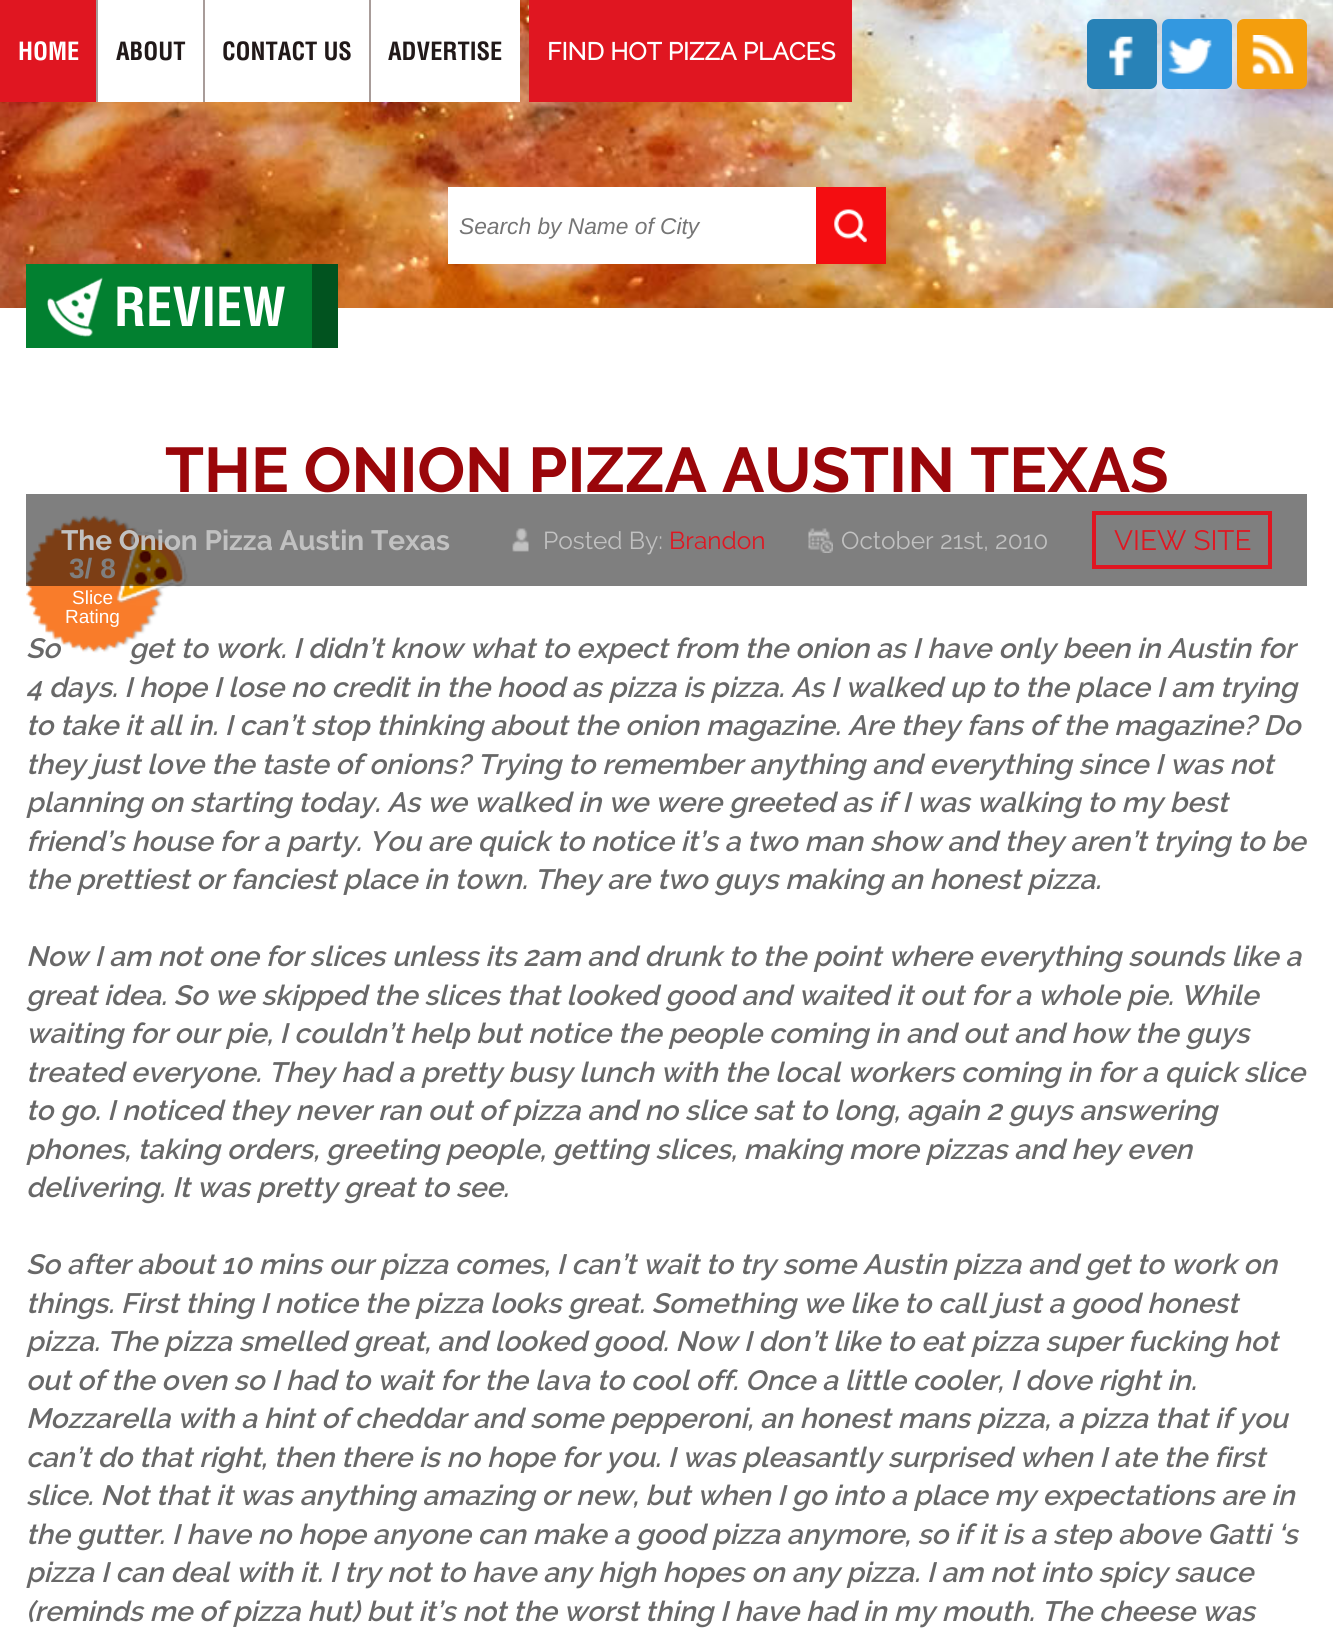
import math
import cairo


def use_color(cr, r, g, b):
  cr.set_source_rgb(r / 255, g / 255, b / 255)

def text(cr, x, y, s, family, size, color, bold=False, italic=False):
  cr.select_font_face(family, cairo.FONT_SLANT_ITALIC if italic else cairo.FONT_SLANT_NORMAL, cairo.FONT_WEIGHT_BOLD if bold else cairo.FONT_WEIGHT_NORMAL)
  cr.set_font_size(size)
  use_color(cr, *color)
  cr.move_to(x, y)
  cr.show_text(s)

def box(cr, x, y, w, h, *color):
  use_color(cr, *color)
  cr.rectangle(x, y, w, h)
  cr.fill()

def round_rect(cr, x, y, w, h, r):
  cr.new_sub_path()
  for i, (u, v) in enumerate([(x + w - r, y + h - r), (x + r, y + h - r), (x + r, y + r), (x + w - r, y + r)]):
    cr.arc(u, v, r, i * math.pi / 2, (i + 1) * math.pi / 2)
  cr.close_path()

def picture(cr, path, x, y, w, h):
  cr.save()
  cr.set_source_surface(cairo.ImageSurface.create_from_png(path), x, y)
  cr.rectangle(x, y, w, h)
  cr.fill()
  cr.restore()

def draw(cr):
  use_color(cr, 255, 255, 255)
  cr.paint()
  picture(cr, "img_01.png", 0, 0, 1333, 308)
  box(cr, 0, 0, 96, 102, 224, 22, 33)
  box(cr, 98, 0, 105, 102, 255, 255, 255)
  box(cr, 96, 0, 2, 102, 168, 156, 153)
  box(cr, 205, 0, 164, 102, 255, 255, 255)
  box(cr, 203, 0, 2, 102, 168, 156, 153)
  box(cr, 371, 0, 149, 102, 255, 255, 255)
  box(cr, 369, 0, 2, 102, 168, 156, 153)
  box(cr, 529, 0, 323, 102, 224, 22, 33)
  use_color(cr, 40, 130, 183)
  round_rect(cr, 1087, 19, 70, 70, 7)
  cr.fill()
  picture(cr, "img_02.png", 1109, 36, 24, 40)
  use_color(cr, 51, 152, 224)
  round_rect(cr, 1162, 19, 70, 70, 7)
  cr.fill()
  picture(cr, "img_03.png", 1168, 38, 44, 36)
  use_color(cr, 244, 158, 13)
  round_rect(cr, 1237, 19, 70, 70, 7)
  cr.fill()
  picture(cr, "img_04.png", 1252, 35, 42, 39)
  box(cr, 448, 187, 368, 77, 255, 255, 255)
  box(cr, 816, 187, 70, 77, 244, 13, 17)
  picture(cr, "img_05.png", 834, 209, 33, 34)
  box(cr, 26, 264, 286, 84, 2, 128, 48)
  picture(cr, "img_06.png", 47, 277, 56, 60)
  box(cr, 312, 264, 26, 84, 1, 83, 31)
  text(cr, 18, 60, "HOME", "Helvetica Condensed", 24.5, (255, 255, 255), bold=True)
  text(cr, 116, 60, "ABOUT", "Helvetica Condensed", 24.5, (33, 25, 25), bold=True)
  text(cr, 222, 60, "CONTACT US", "Helvetica Condensed", 24.5, (33, 25, 25), bold=True)
  text(cr, 388, 60, "ADVERTISE", "Helvetica Condensed", 24.5, (33, 25, 25), bold=True)
  text(cr, 547, 60, "FIND HOT PIZZA PLACES", "Raleway", 24.5, (255, 255, 255), bold=True)
  text(cr, 459, 234, "Search by Name of City", "Liberation Sans", 22.75, (117, 117, 117), italic=True)
  text(cr, 114, 326, "REVIEW", "Helvetica Condensed", 52.5, (255, 255, 255), bold=True)
  text(cr, 165, 492, "THE ONION PIZZA AUSTIN TEXAS", "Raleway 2", 63, (154, 6, 10), bold=True)
  text(cr, 26, 658, "So", "Raleway SemiBold", 28, (104, 104, 104), italic=True)
  text(cr, 129, 658, "get to work. I didn’t know what to expect from the onion as I have only been in Austin for", "Raleway SemiBold", 28, (104, 104, 104), italic=True)
  picture(cr, "img_09.png", 26, 515, 162, 138)
  text(cr, 69, 578, "3/ 8", "Liberation Sans", 28, (255, 255, 255), bold=True)
  cr.set_source_rgba(0, 0, 0, 0.5)
  cr.rectangle(26, 494, 1281, 92)
  cr.fill()
  cr.rectangle(1094, 513, 176, 54)
  use_color(cr, 224, 22, 33)
  cr.set_line_width(4)
  cr.stroke()
  text(cr, 1114, 550, "VIEW SITE", "Raleway", 28, (224, 22, 33))
  text(cr, 841, 549, "October 21st, 2010", "Raleway", 24.5, (193, 193, 193))
  picture(cr, "img_08.png", 808, 528, 25, 25)
  text(cr, 669, 549, "Brandon", "Raleway", 24.5, (224, 22, 33))
  text(cr, 543, 549, "Posted By:", "Raleway", 24.5, (193, 193, 193))
  picture(cr, "img_07.png", 512, 528, 17, 24)
  text(cr, 61, 550, "The Onion Pizza Austin Texas", "Raleway 2", 28, (193, 193, 193), bold=True)
  text(cr, 65, 623, "Rating", "Liberation Sans", 19, (255, 255, 255))
  text(cr, 72, 604, "Slice", "Liberation Sans", 19, (255, 255, 255))
  text(cr, 26, 697, "4 days. I hope I lose no credit in the hood as pizza is pizza. As I walked up to the place I am trying", "Raleway SemiBold", 28, (104, 104, 104), italic=True)
  text(cr, 26, 735, "to take it all in. I can’t stop thinking about the onion magazine. Are they fans of the magazine? Do", "Raleway SemiBold", 28, (104, 104, 104), italic=True)
  text(cr, 26, 774, "they just love the taste of onions? Trying to remember anything and everything since I was not", "Raleway SemiBold", 28, (104, 104, 104), italic=True)
  text(cr, 26, 812, "planning on starting today. As we walked in we were greeted as if I was walking to my best", "Raleway SemiBold", 28, (104, 104, 104), italic=True)
  text(cr, 26, 851, "friend’s house for a party. You are quick to notice it’s a two man show and they aren’t trying to be", "Raleway SemiBold", 28, (104, 104, 104), italic=True)
  text(cr, 26, 889, "the prettiest or fanciest place in town. They are two guys making an honest pizza.", "Raleway SemiBold", 28, (104, 104, 104), italic=True)
  text(cr, 26, 966, "Now I am not one for slices unless its 2am and drunk to the point where everything sounds like a", "Raleway SemiBold", 28, (104, 104, 104), italic=True)
  text(cr, 26, 1005, "great idea. So we skipped the slices that looked good and waited it out for a whole pie. While", "Raleway SemiBold", 28, (104, 104, 104), italic=True)
  text(cr, 26, 1043, "waiting for our pie, I couldn’t help but notice the people coming in and out and how the guys", "Raleway SemiBold", 28, (104, 104, 104), italic=True)
  text(cr, 26, 1082, "treated everyone. They had a pretty busy lunch with the local workers coming in for a quick slice", "Raleway SemiBold", 28, (104, 104, 104), italic=True)
  text(cr, 26, 1120, "to go. I noticed they never ran out of pizza and no slice sat to long, again 2 guys answering", "Raleway SemiBold", 28, (104, 104, 104), italic=True)
  text(cr, 26, 1159, "phones, taking orders, greeting people, getting slices, making more pizzas and hey even", "Raleway SemiBold", 28, (104, 104, 104), italic=True)
  text(cr, 26, 1197, "delivering. It was pretty great to see.", "Raleway SemiBold", 28, (104, 104, 104), italic=True)
  text(cr, 26, 1274, "So after about 10 mins our pizza comes, I can’t wait to try some Austin pizza and get to work on", "Raleway SemiBold", 28, (104, 104, 104), italic=True)
  text(cr, 26, 1313, "things. First thing I notice the pizza looks great. Something we like to call just a good honest", "Raleway SemiBold", 28, (104, 104, 104), italic=True)
  text(cr, 26, 1351, "pizza. The pizza smelled great, and looked good. Now I don’t like to eat pizza super fucking hot", "Raleway SemiBold", 28, (104, 104, 104), italic=True)
  text(cr, 26, 1390, "out of the oven so I had to wait for the lava to cool off. Once a little cooler, I dove right in.", "Raleway SemiBold", 28, (104, 104, 104), italic=True)
  text(cr, 26, 1428, "Mozzarella with a hint of cheddar and some pepperoni, an honest mans pizza, a pizza that if you", "Raleway SemiBold", 28, (104, 104, 104), italic=True)
  text(cr, 26, 1467, "can’t do that right, then there is no hope for you. I was pleasantly surprised when I ate the first", "Raleway SemiBold", 28, (104, 104, 104), italic=True)
  text(cr, 26, 1505, "slice. Not that it was anything amazing or new, but when I go into a place my expectations are in", "Raleway SemiBold", 28, (104, 104, 104), italic=True)
  text(cr, 26, 1544, "the gutter. I have no hope anyone can make a good pizza anymore, so if it is a step above Gatti ‘s", "Raleway SemiBold", 28, (104, 104, 104), italic=True)
  text(cr, 26, 1582, "pizza I can deal with it. I try not to have any high hopes on any pizza. I am not into spicy sauce", "Raleway SemiBold", 28, (104, 104, 104), italic=True)
  text(cr, 26, 1621, "(reminds me of pizza hut) but it’s not the worst thing I have had in my mouth. The cheese was", "Raleway SemiBold", 28, (104, 104, 104), italic=True)


surface = cairo.ImageSurface(cairo.FORMAT_RGB24, 1333, 1650)
cr = cairo.Context(surface)
options = cairo.FontOptions()
options.set_hint_metrics(cairo.HINT_METRICS_OFF)
options.set_hint_style(cairo.HINT_STYLE_NONE)
cr.set_font_options(options)
cr.set_miter_limit(4)
draw(cr)
surface.write_to_png("out.png")
